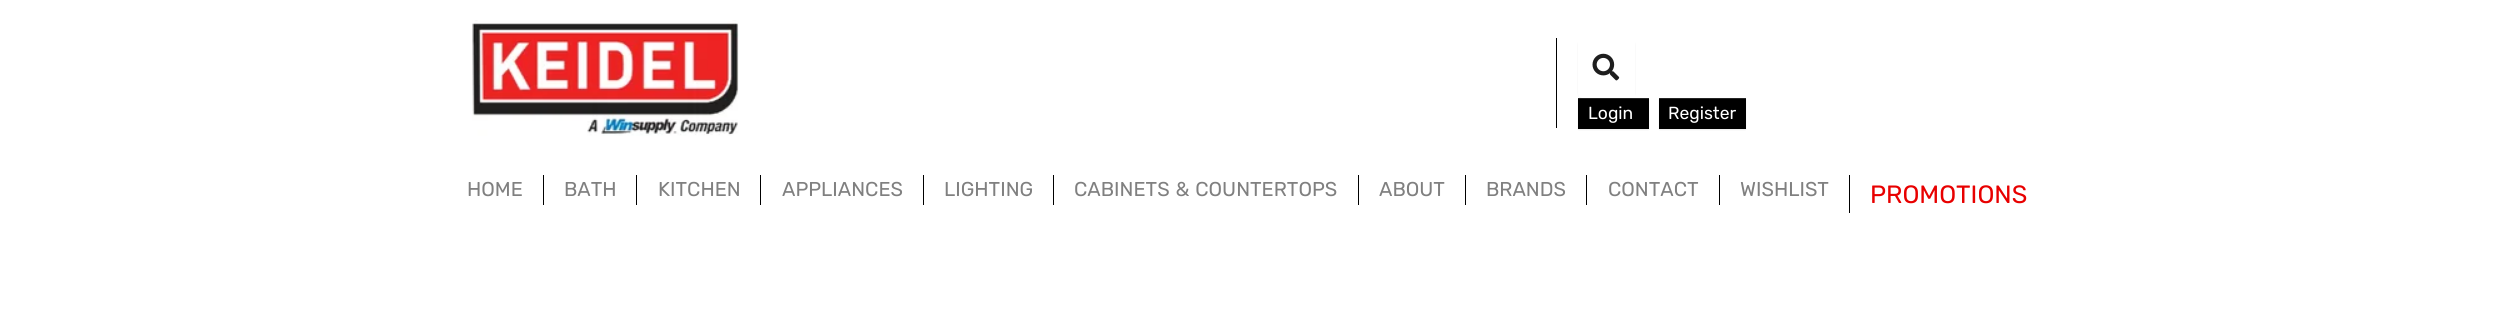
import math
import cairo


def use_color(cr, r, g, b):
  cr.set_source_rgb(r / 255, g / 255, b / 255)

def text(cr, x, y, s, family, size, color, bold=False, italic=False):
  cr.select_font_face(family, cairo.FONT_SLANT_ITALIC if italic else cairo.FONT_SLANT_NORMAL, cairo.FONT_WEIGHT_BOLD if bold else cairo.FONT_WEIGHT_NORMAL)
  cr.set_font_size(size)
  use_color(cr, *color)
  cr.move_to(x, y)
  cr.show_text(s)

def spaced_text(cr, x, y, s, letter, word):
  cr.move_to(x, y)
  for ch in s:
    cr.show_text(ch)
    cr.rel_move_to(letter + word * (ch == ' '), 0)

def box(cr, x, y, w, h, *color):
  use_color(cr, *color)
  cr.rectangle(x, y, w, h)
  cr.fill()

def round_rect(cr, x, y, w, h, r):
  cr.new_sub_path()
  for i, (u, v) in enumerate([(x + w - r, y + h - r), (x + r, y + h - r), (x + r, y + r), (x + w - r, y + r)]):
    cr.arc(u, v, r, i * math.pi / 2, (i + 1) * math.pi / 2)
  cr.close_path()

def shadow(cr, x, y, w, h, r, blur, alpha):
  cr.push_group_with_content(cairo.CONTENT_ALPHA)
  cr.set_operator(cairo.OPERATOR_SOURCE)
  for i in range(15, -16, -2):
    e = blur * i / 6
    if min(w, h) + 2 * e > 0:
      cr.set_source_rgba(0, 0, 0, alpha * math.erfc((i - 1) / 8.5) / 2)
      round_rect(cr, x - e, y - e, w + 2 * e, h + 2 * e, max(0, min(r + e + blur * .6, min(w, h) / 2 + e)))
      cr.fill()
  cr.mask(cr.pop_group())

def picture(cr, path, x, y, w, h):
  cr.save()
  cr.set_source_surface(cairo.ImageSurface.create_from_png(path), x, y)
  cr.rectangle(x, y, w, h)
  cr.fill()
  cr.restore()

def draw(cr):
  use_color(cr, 255, 255, 255)
  cr.paint()
  picture(cr, "img_01.png", 472, 20, 267, 116)
  box(cr, 1556, 38, 1, 90, 0, 0, 0)
  use_color(cr, 0, 0, 0)
  shadow(cr, 1578, 99, 71, 31, 0, 0.5, 0.07)
  box(cr, 1578, 99, 71, 30, 0, 0, 0)
  box(cr, 1578, 98, 71, 1, 38, 38, 38)
  cr.save()
  cr.set_fill_rule(cairo.FILL_RULE_EVEN_ODD)
  cr.new_path()
  cr.move_to(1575, 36)
  cr.line_to(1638, 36)
  cr.line_to(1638, 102)
  cr.line_to(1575, 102)
  cr.close_path()
  cr.move_to(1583, 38)
  cr.line_to(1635, 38)
  cr.line_to(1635, 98)
  cr.line_to(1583, 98)
  cr.curve_to(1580, 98, 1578, 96, 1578, 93)
  cr.line_to(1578, 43)
  cr.curve_to(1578, 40, 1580, 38, 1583, 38)
  cr.close_path()
  cr.clip()
  use_color(cr, 0, 0, 0)
  shadow(cr, 1578, 39, 57, 60, 5, 0.5, 0.07)
  cr.restore()
  picture(cr, "img_02.png", 1592, 53, 28, 28)
  use_color(cr, 0, 0, 0)
  shadow(cr, 1659, 99, 87, 31, 0, 0.5, 0.07)
  box(cr, 1659, 99, 87, 30, 0, 0, 0)
  box(cr, 1659, 98, 87, 1, 38, 38, 38)
  box(cr, 543, 175, 1, 30, 0, 0, 0)
  box(cr, 636, 175, 1, 30, 0, 0, 0)
  box(cr, 760, 175, 1, 30, 0, 0, 0)
  box(cr, 923, 175, 1, 30, 0, 0, 0)
  box(cr, 1053, 175, 1, 30, 0, 0, 0)
  box(cr, 1358, 175, 1, 30, 0, 0, 0)
  box(cr, 1465, 175, 1, 30, 0, 0, 0)
  box(cr, 1586, 175, 1, 30, 0, 0, 0)
  box(cr, 1719, 175, 1, 30, 0, 0, 0)
  box(cr, 1849, 175, 1, 38, 0, 0, 0)
  text(cr, 1588, 119, "Login", "Rubik", 17.5, (255, 255, 255))
  text(cr, 1668, 119, "Register", "Rubik", 17.5, (255, 255, 255))
  text(cr, 467, 196, "HOME", "Rubik", 20, (128, 128, 128))
  text(cr, 564, 196, "BATH", "Rubik", 20, (128, 128, 128))
  text(cr, 658, 196, "KITCHEN", "Rubik", 20, (128, 128, 128))
  text(cr, 782, 196, "APPLIANCES", "Rubik", 20, (128, 128, 128))
  text(cr, 944, 196, "LIGHTING", "Rubik", 20, (128, 128, 128))
  spaced_text(cr, 1074, 196, "CABINETS & COUNTERTOPS", 0, 1)
  text(cr, 1379, 196, "ABOUT", "Rubik", 20, (128, 128, 128))
  text(cr, 1486, 196, "BRANDS", "Rubik", 20, (128, 128, 128))
  text(cr, 1608, 196, "CONTACT", "Rubik", 20, (128, 128, 128))
  text(cr, 1740, 196, "WISHLIST", "Rubik", 20, (128, 128, 128))
  text(cr, 1870, 203, "PROMOTIONS", "Rubik", 25, (232, 0, 0))


surface = cairo.ImageSurface(cairo.FORMAT_RGB24, 2493, 324)
cr = cairo.Context(surface)
options = cairo.FontOptions()
options.set_hint_metrics(cairo.HINT_METRICS_OFF)
options.set_hint_style(cairo.HINT_STYLE_NONE)
cr.set_font_options(options)
cr.set_miter_limit(4)
draw(cr)
surface.write_to_png("out.png")
